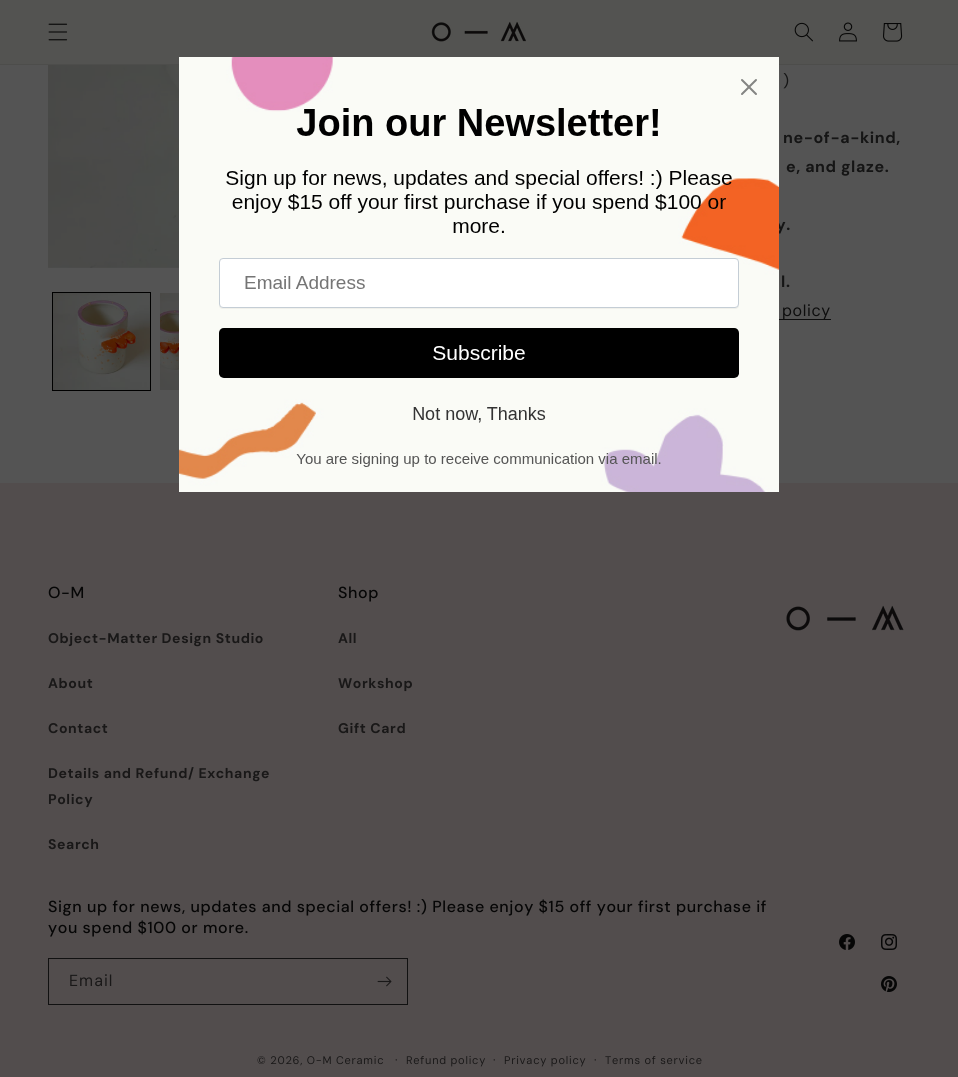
import math
import cairo


def use_color(cr, r, g, b):
  cr.set_source_rgb(r / 255, g / 255, b / 255)

def spaced_text(cr, x, y, s, letter, word):
  cr.move_to(x, y)
  for ch in s:
    cr.show_text(ch)
    cr.rel_move_to(letter + word * (ch == ' '), 0)

def box(cr, x, y, w, h, *color):
  use_color(cr, *color)
  cr.rectangle(x, y, w, h)
  cr.fill()

def picture(cr, path, x, y, w, h):
  cr.save()
  cr.set_source_surface(cairo.ImageSurface.create_from_png(path), x, y)
  cr.rectangle(x, y, w, h)
  cr.fill()
  cr.restore()

def draw(cr):
  use_color(cr, 255, 255, 255)
  cr.paint()
  box(cr, 0, 0, 958, 64, 253, 253, 245)
  box(cr, 0, 64, 958, 1, 234, 234, 227)
  picture(cr, "img_01.png", 48, 23, 20, 18)
  picture(cr, "img_02.png", 431, 21, 95, 21)
  picture(cr, "img_03.png", 794, 22, 19, 20)
  picture(cr, "img_04.png", 839, 22, 18, 20)
  picture(cr, "img_05.png", 883, 23, 20, 19)
  picture(cr, "img_07.png", 48, 65, 131, 203)
  cr.rectangle(52.5, 292.5, 98, 98)
  use_color(cr, 0, 0, 0)
  cr.set_line_width(1)
  cr.stroke()
  picture(cr, "img_08.png", 53, 293, 97, 97)
  picture(cr, "img_09.png", 160, 293, 19, 97)
  box(cr, 779, 319, 52, 1, 38, 38, 38)
  box(cr, 0, 483, 958, 594, 250, 235, 235)
  picture(cr, "img_10.png", 786, 605, 118, 26)
  cr.rectangle(48.5, 958.5, 359, 46)
  use_color(cr, 53, 51, 51)
  cr.stroke()
  picture(cr, "img_11.png", 377, 976, 15, 11)
  picture(cr, "img_12.png", 839, 934, 16, 16)
  picture(cr, "img_13.png", 881, 934, 16, 16)
  picture(cr, "img_14.png", 881, 976, 16, 16)
  cr.select_font_face("DM Sans")
  cr.set_font_size(16)
  use_color(cr, 64, 64, 64)
  spaced_text(cr, 783, 86, ")", 0.6, 0)
  cr.select_font_face("DM Sans", cairo.FONT_SLANT_NORMAL, cairo.FONT_WEIGHT_BOLD)
  spaced_text(cr, 783, 143, "ne-of-a-kind,", 0.6, 0)
  spaced_text(cr, 786, 172, "e, and glaze.", 0.6, 0)
  spaced_text(cr, 776, 230, "y.", 0.6, 0)
  spaced_text(cr, 781, 287, "l.", 0.6, 0)
  cr.select_font_face("DM Sans")
  use_color(cr, 38, 38, 38)
  spaced_text(cr, 782, 316, "policy", 0.6, -1)
  cr.select_font_face("DM Sans Medium")
  use_color(cr, 18, 18, 18)
  spaced_text(cr, 48, 598, "O-M", 0.6, 0)
  cr.select_font_face("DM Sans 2", cairo.FONT_SLANT_NORMAL, cairo.FONT_WEIGHT_BOLD)
  cr.set_font_size(14)
  use_color(cr, 76, 72, 72)
  spaced_text(cr, 48, 643, "Object-Matter Design Studio", 0.6, 0)
  spaced_text(cr, 48, 688, "About", 0.6, 0)
  spaced_text(cr, 48, 733, "Contact", 0.6, 0)
  spaced_text(cr, 48, 778, "Details and Refund/ Exchange", 0.6, 0)
  spaced_text(cr, 48, 804, "Policy", 0.6, 0)
  spaced_text(cr, 48, 849, "Search", 0.6, 0)
  cr.select_font_face("DM Sans Medium")
  cr.set_font_size(16)
  use_color(cr, 18, 18, 18)
  spaced_text(cr, 338, 598, "Shop", 0.6, 0)
  cr.select_font_face("DM Sans 2", cairo.FONT_SLANT_NORMAL, cairo.FONT_WEIGHT_BOLD)
  cr.set_font_size(14)
  use_color(cr, 76, 72, 72)
  spaced_text(cr, 338, 643, "All", 0.6, 0)
  spaced_text(cr, 338, 688, "Workshop", 0.6, 0)
  spaced_text(cr, 338, 733, "Gift Card", 0.6, 0)
  cr.select_font_face("DM Sans Medium")
  cr.set_font_size(16)
  use_color(cr, 18, 18, 18)
  spaced_text(cr, 48, 912, "Sign up for news, updates and special offers! :) Please enjoy $15 off your first purchase if", 0.6, 0)
  spaced_text(cr, 48, 933, "you spend $100 or more.", 0.6, 0)
  cr.select_font_face("DM Sans")
  use_color(cr, 76, 72, 72)
  spaced_text(cr, 69, 986, "Email", 1, 0)
  cr.set_font_size(11)
  spaced_text(cr, 257, 1064, "© 2026, O-M Ceramic", 0.75, 0)
  cr.set_font_size(12)
  spaced_text(cr, 395, 1064, "·", 0.75, 0)
  cr.set_font_size(11)
  spaced_text(cr, 406, 1064, "Refund policy", 0.75, 0)
  cr.set_font_size(12)
  spaced_text(cr, 493, 1064, "·", 0.75, 0)
  cr.set_font_size(11)
  spaced_text(cr, 504, 1064, "Privacy policy", 0.75, 0)
  cr.set_font_size(12)
  spaced_text(cr, 594, 1064, "·", 0.75, 0)
  cr.set_font_size(11)
  spaced_text(cr, 605, 1064, "Terms of service", 0.75, 0)
  picture(cr, "img_06.png", 0, 0, 958, 1077)


surface = cairo.ImageSurface(cairo.FORMAT_RGB24, 958, 1077)
cr = cairo.Context(surface)
options = cairo.FontOptions()
options.set_hint_metrics(cairo.HINT_METRICS_OFF)
options.set_hint_style(cairo.HINT_STYLE_NONE)
cr.set_font_options(options)
cr.set_miter_limit(4)
draw(cr)
surface.write_to_png("out.png")
